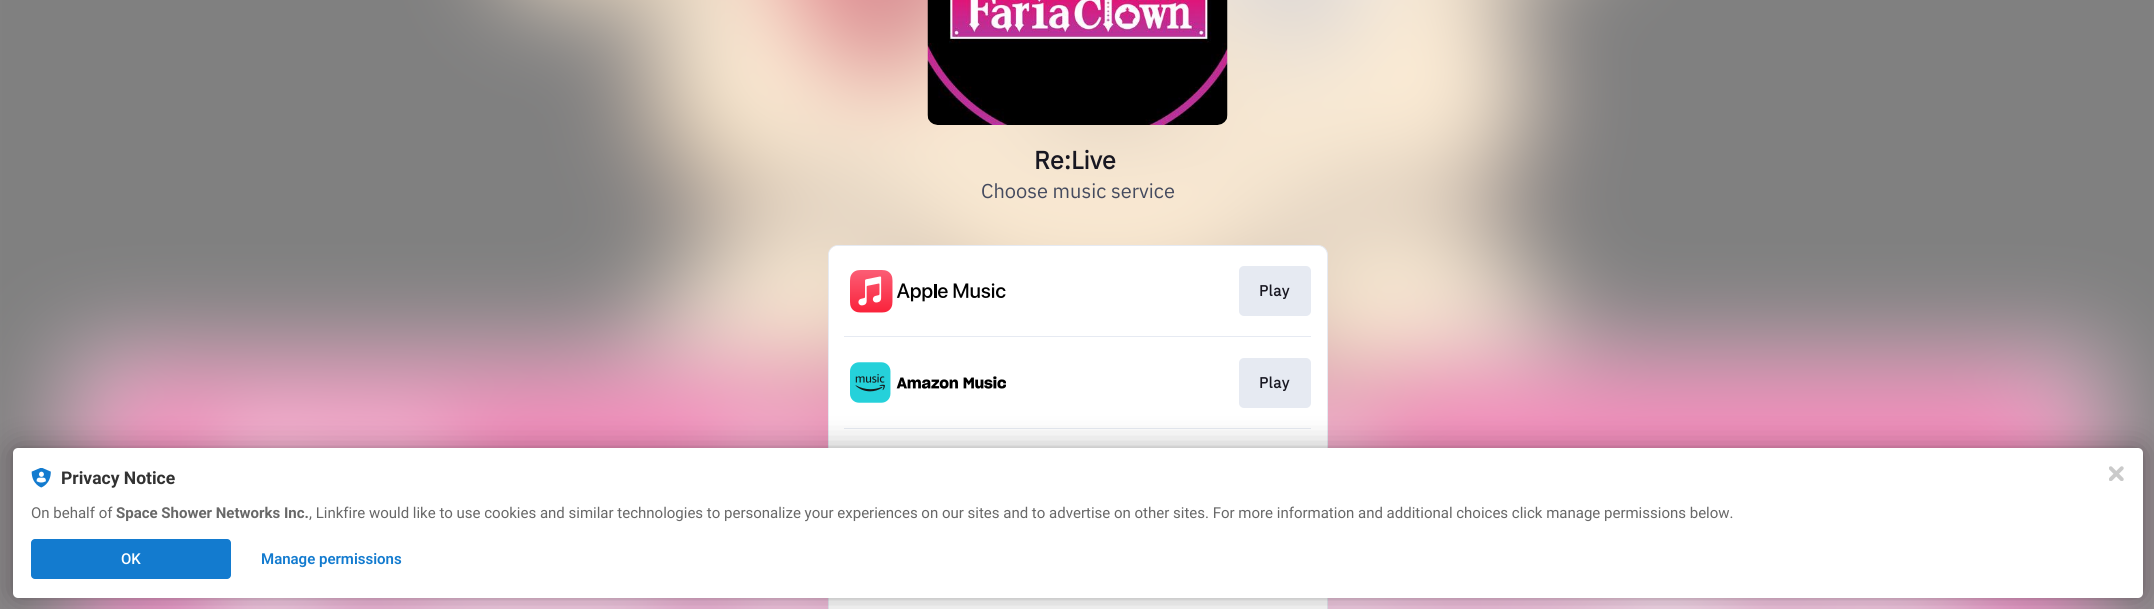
import math
import cairo


def use_color(cr, r, g, b):
  cr.set_source_rgb(r / 255, g / 255, b / 255)

def text(cr, x, y, s, family, size, color, bold=False, italic=False):
  cr.select_font_face(family, cairo.FONT_SLANT_ITALIC if italic else cairo.FONT_SLANT_NORMAL, cairo.FONT_WEIGHT_BOLD if bold else cairo.FONT_WEIGHT_NORMAL)
  cr.set_font_size(size)
  use_color(cr, *color)
  cr.move_to(x, y)
  cr.show_text(s)

def spaced_text(cr, x, y, s, letter, word):
  cr.move_to(x, y)
  for ch in s:
    cr.show_text(ch)
    cr.rel_move_to(letter + word * (ch == ' '), 0)

def box(cr, x, y, w, h, *color):
  use_color(cr, *color)
  cr.rectangle(x, y, w, h)
  cr.fill()

def round_rect(cr, x, y, w, h, r):
  cr.new_sub_path()
  for i, (u, v) in enumerate([(x + w - r, y + h - r), (x + r, y + h - r), (x + r, y + r), (x + w - r, y + r)]):
    cr.arc(u, v, r, i * math.pi / 2, (i + 1) * math.pi / 2)
  cr.close_path()

def shadow(cr, x, y, w, h, r, blur, alpha):
  cr.push_group_with_content(cairo.CONTENT_ALPHA)
  cr.set_operator(cairo.OPERATOR_SOURCE)
  for i in range(15, -16, -2):
    e = blur * i / 6
    if min(w, h) + 2 * e > 0:
      cr.set_source_rgba(0, 0, 0, alpha * math.erfc((i - 1) / 8.5) / 2)
      round_rect(cr, x - e, y - e, w + 2 * e, h + 2 * e, max(0, min(r + e + blur * .6, min(w, h) / 2 + e)))
      cr.fill()
  cr.mask(cr.pop_group())

def picture(cr, path, x, y, w, h):
  cr.save()
  cr.set_source_surface(cairo.ImageSurface.create_from_png(path), x, y)
  cr.rectangle(x, y, w, h)
  cr.fill()
  cr.restore()

def draw(cr):
  use_color(cr, 255, 255, 255)
  cr.paint()
  picture(cr, "img_01.png", 0, 0, 2154, 609)
  picture(cr, "img_02.png", 927, 0, 301, 125)
  use_color(cr, 255, 255, 255)
  round_rect(cr, 828.5, 245.5, 499, 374, 9.5)
  cr.fill_preserve()
  use_color(cr, 230, 234, 242)
  cr.set_line_width(1)
  cr.stroke()
  use_color(cr, 255, 255, 255)
  round_rect(cr, 829, 246, 497, 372, 9)
  cr.fill()
  picture(cr, "img_03.png", 850, 270, 156, 43)
  use_color(cr, 230, 234, 242)
  round_rect(cr, 1239, 266, 72, 50, 5)
  cr.fill()
  box(cr, 844, 336, 467, 1, 230, 234, 242)
  picture(cr, "img_04.png", 850, 362, 156, 41)
  round_rect(cr, 1239, 358, 72, 50, 5)
  cr.fill()
  box(cr, 844, 428, 467, 1, 230, 234, 242)
  use_color(cr, 0, 0, 0)
  shadow(cr, 13, 448, 2130, 150, 5, 2.5, 0.12)
  shadow(cr, 13, 448, 2130, 150, 5, 15, 0.3)
  use_color(cr, 255, 255, 255)
  round_rect(cr, 13, 448, 2130, 150, 5)
  cr.fill()
  picture(cr, "img_05.png", 31, 468, 20, 20)
  use_color(cr, 19, 123, 207)
  round_rect(cr, 31, 539, 200, 40, 4)
  cr.fill()
  picture(cr, "img_06.png", 2109, 466, 15, 15)
  text(cr, 1034, 169, "Re:Live", "IBM Plex Sans", 25, (24, 23, 33), bold=True)
  text(cr, 981, 198, "Choose music service", "IBM Plex Sans", 20, (69, 75, 95))
  cr.select_font_face("IBM Plex Sans", cairo.FONT_SLANT_NORMAL, cairo.FONT_WEIGHT_BOLD)
  cr.set_font_size(15)
  use_color(cr, 24, 23, 33)
  spaced_text(cr, 1259, 296, "Play", 0.5, 0)
  spaced_text(cr, 1259, 388, "Play", 0.5, 0)
  text(cr, 61, 484, "Privacy Notice", "Roboto", 17.5, (50, 50, 50), bold=True)
  text(cr, 31, 518, "On behalf of", "Roboto", 15, (104, 104, 104))
  text(cr, 116, 518, "Space Shower Networks Inc.", "Roboto", 15, (104, 104, 104), bold=True)
  text(cr, 309, 518, ", Linkfire would like to use cookies and similar technologies to personalize your experiences on our sites and to advertise on other sites. For more information and additional choices click manage permissions below.", "Roboto", 15, (104, 104, 104))
  text(cr, 121, 564, "OK", "Roboto Medium", 15, (255, 255, 255))
  text(cr, 261, 564, "Manage permissions", "Roboto SemiBold", 15, (19, 123, 207))


surface = cairo.ImageSurface(cairo.FORMAT_RGB24, 2154, 609)
cr = cairo.Context(surface)
options = cairo.FontOptions()
options.set_hint_metrics(cairo.HINT_METRICS_OFF)
options.set_hint_style(cairo.HINT_STYLE_NONE)
cr.set_font_options(options)
cr.set_miter_limit(4)
draw(cr)
surface.write_to_png("out.png")
